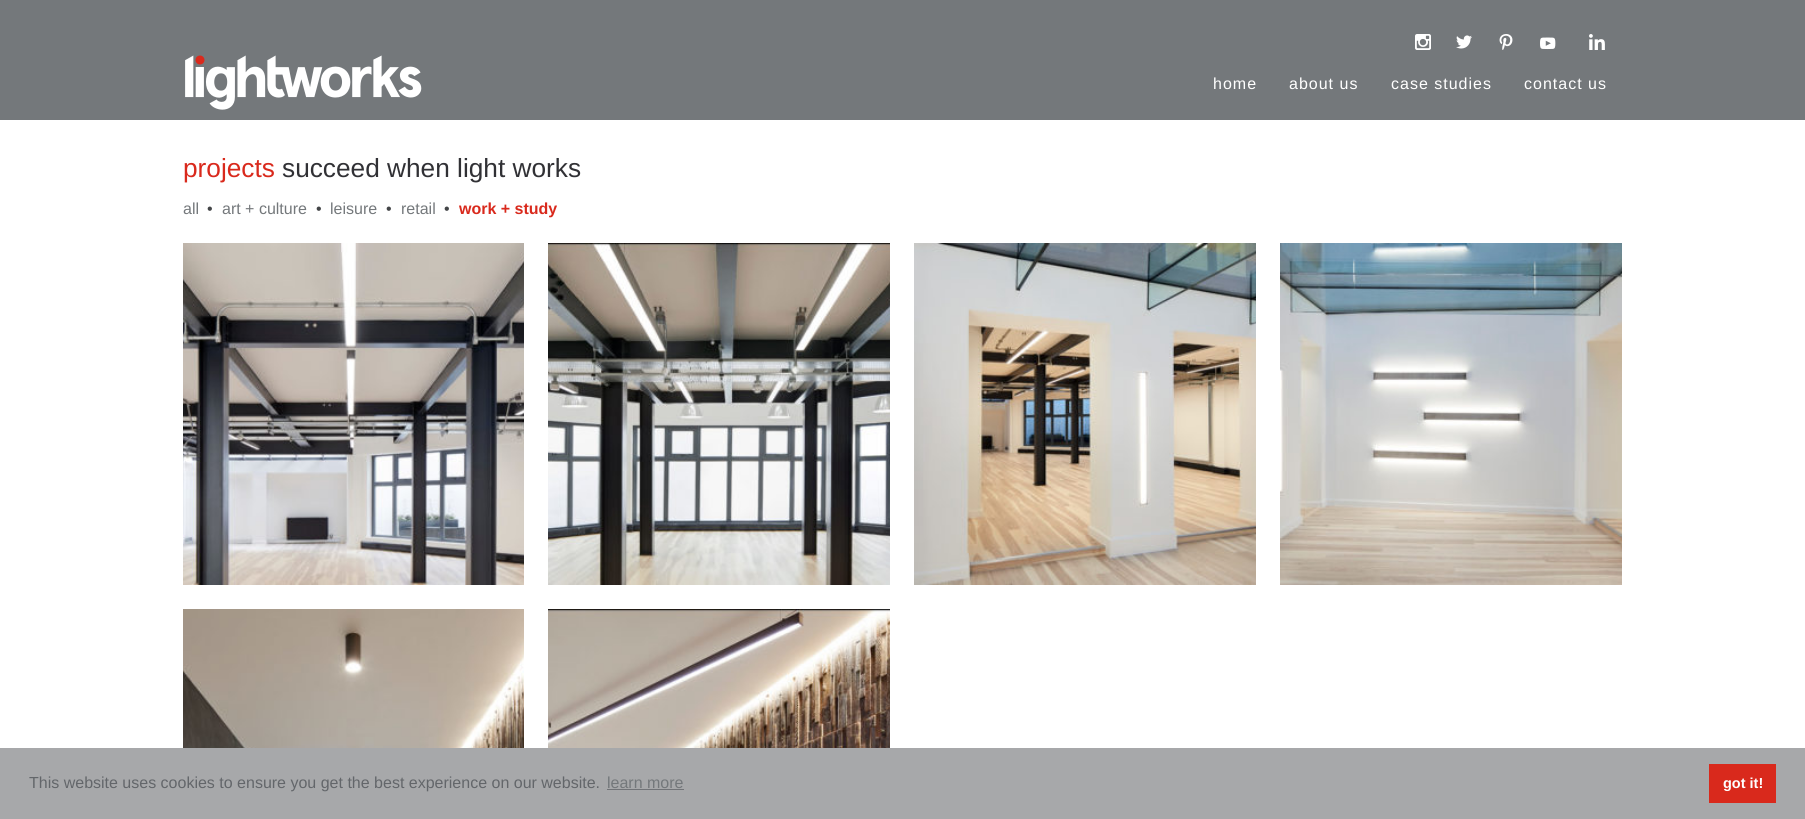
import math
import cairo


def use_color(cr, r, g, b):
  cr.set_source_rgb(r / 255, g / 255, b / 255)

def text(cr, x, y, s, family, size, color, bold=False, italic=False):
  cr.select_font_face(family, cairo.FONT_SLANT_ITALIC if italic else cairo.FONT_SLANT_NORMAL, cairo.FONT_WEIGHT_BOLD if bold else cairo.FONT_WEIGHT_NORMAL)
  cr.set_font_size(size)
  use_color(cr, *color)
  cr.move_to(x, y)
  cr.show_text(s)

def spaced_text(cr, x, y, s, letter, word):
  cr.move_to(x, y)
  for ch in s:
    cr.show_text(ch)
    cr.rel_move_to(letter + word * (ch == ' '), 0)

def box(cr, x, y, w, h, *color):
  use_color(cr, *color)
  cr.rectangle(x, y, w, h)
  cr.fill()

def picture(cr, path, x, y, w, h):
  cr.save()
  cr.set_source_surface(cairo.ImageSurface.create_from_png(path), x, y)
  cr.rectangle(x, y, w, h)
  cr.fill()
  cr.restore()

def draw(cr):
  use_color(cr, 116, 120, 123)
  cr.paint()
  picture(cr, "img_01.png", 185, 55, 237, 55)
  picture(cr, "img_02.png", 1415, 34, 16, 16)
  picture(cr, "img_03.png", 1456, 35, 16, 14)
  picture(cr, "img_04.png", 1499, 34, 14, 16)
  picture(cr, "img_05.png", 1540, 37, 16, 13)
  picture(cr, "img_06.png", 1589, 34, 16, 16)
  box(cr, 0, 120, 1805, 628, 255, 255, 255)
  picture(cr, "img_07.png", 183, 243, 341, 342)
  picture(cr, "img_08.png", 548, 243, 342, 342)
  picture(cr, "img_09.png", 914, 243, 342, 342)
  picture(cr, "img_10.png", 1280, 243, 342, 342)
  picture(cr, "img_11.png", 183, 609, 341, 139)
  picture(cr, "img_12.png", 548, 609, 342, 139)
  box(cr, 0, 748, 1805, 71, 167, 168, 170)
  box(cr, 607, 789, 77, 1, 113, 115, 119)
  box(cr, 1709, 764, 67, 39, 217, 41, 28)
  cr.select_font_face("Liberation Sans")
  cr.set_font_size(16)
  use_color(cr, 255, 255, 255)
  spaced_text(cr, 1213, 89, "home", 1, 0)
  spaced_text(cr, 1289, 89, "about us", 1, 0)
  spaced_text(cr, 1391, 89, "case studies", 1, 0)
  spaced_text(cr, 1524, 89, "contact us", 1, 0)
  text(cr, 183, 177, "projects", "Liberation Sans", 26.25, (217, 41, 28))
  text(cr, 282, 177, "succeed when light works", "Liberation Sans", 26.25, (49, 49, 53))
  text(cr, 183, 214, "all", "Liberation Sans", 16, (116, 120, 123))
  text(cr, 207, 214, "•", "Liberation Sans", 16, (67, 69, 71))
  text(cr, 222, 214, "art + culture", "Liberation Sans", 16, (116, 120, 123))
  text(cr, 316, 214, "•", "Liberation Sans", 16, (67, 69, 71))
  text(cr, 330, 214, "leisure", "Liberation Sans", 16, (116, 120, 123))
  text(cr, 386, 214, "•", "Liberation Sans", 16, (67, 69, 71))
  text(cr, 401, 214, "retail", "Liberation Sans", 16, (116, 120, 123))
  text(cr, 444, 214, "•", "Liberation Sans", 16, (67, 69, 71))
  text(cr, 459, 214, "work + study", "Liberation Sans", 16, (217, 41, 28), bold=True)
  text(cr, 29, 788, "This website uses cookies to ensure you get the best experience on our website.", "Liberation Sans", 16, (99, 102, 106))
  text(cr, 607, 788, "learn more", "Liberation Sans", 16, (116, 120, 123))
  text(cr, 1723, 788, "got it!", "Liberation Sans", 14.5, (255, 255, 255), bold=True)


surface = cairo.ImageSurface(cairo.FORMAT_RGB24, 1805, 819)
cr = cairo.Context(surface)
options = cairo.FontOptions()
options.set_hint_metrics(cairo.HINT_METRICS_OFF)
options.set_hint_style(cairo.HINT_STYLE_NONE)
cr.set_font_options(options)
cr.set_miter_limit(4)
draw(cr)
surface.write_to_png("out.png")
